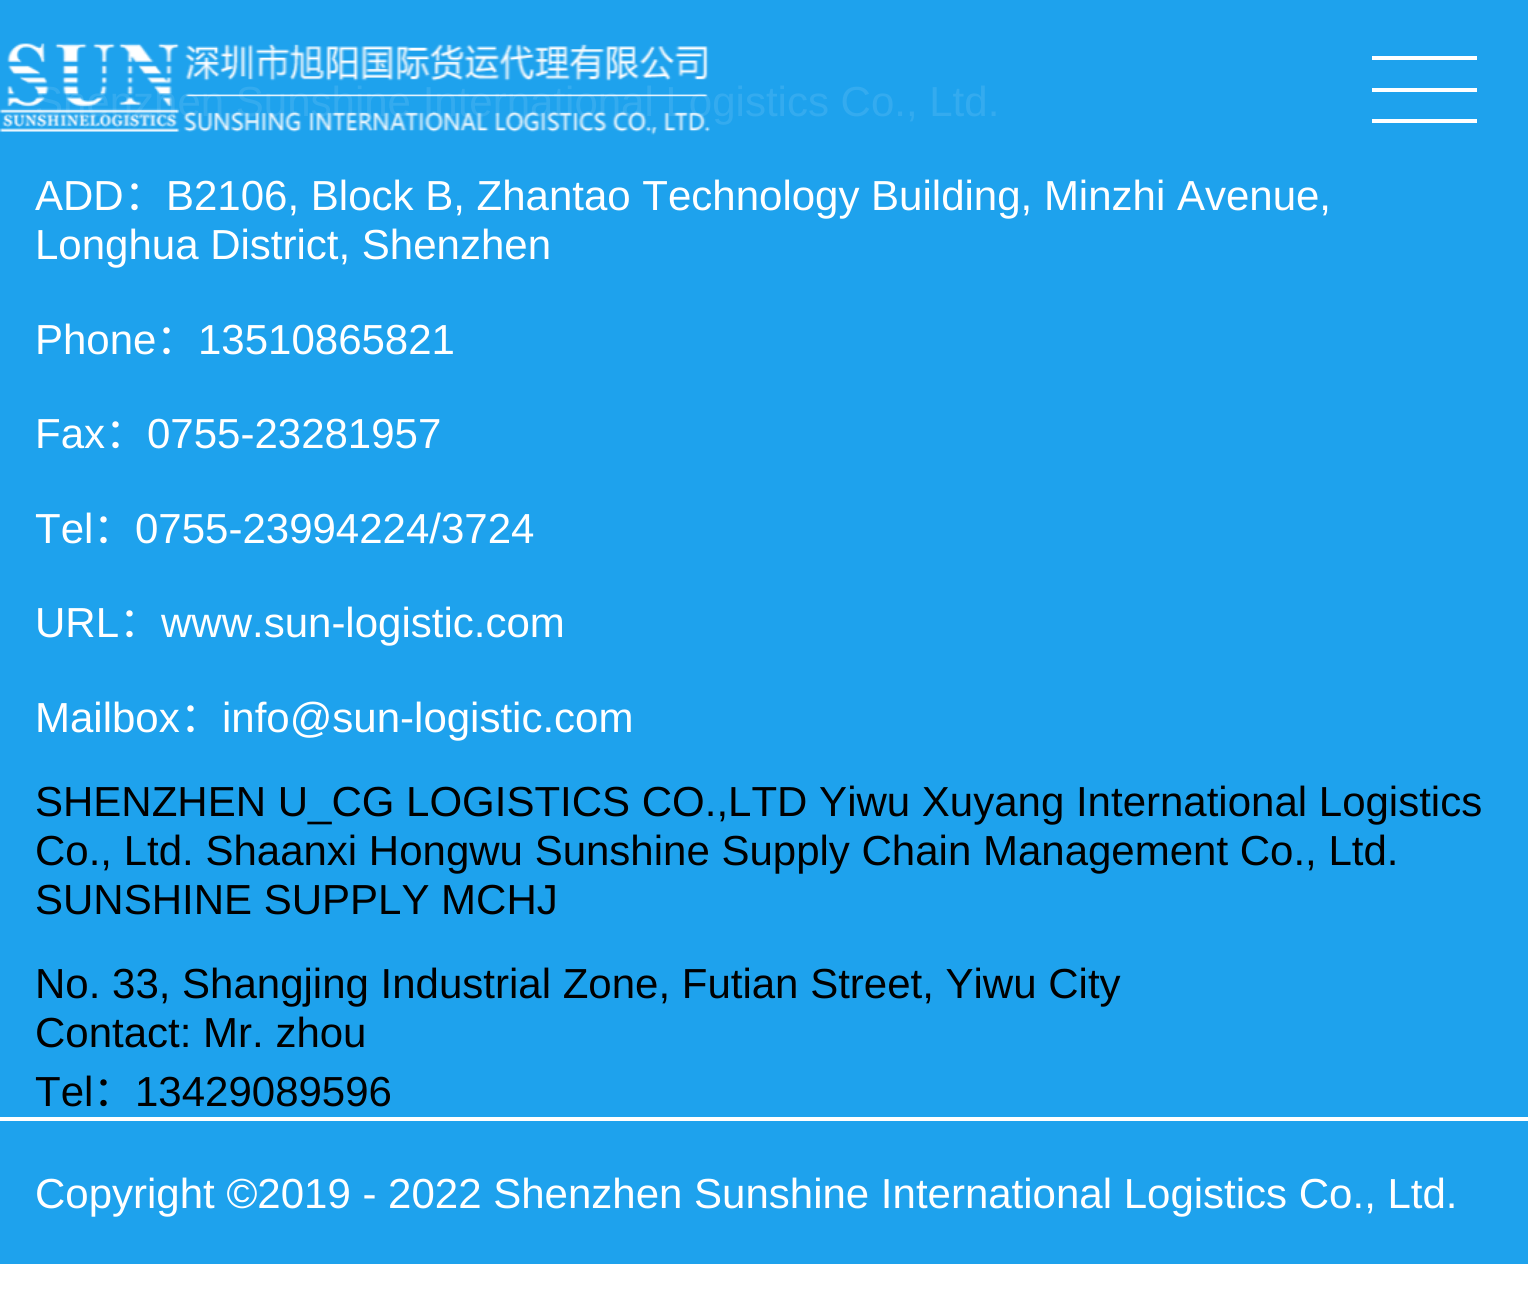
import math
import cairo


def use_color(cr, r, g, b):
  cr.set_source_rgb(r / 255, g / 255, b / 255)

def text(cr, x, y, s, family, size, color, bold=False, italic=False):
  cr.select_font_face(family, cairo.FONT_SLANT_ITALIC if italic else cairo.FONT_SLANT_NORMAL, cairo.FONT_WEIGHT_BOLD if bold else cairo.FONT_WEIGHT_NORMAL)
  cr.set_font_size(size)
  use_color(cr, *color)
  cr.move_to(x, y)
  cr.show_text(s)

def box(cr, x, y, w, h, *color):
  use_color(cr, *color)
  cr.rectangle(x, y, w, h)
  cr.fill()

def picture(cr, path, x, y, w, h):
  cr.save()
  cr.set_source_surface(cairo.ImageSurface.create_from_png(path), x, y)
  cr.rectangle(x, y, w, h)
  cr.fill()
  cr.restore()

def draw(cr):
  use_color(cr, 255, 255, 255)
  cr.paint()
  box(cr, 0, 0, 1528, 1264, 30, 162, 237)
  box(cr, 1372, 56, 105, 4, 255, 255, 255)
  box(cr, 1372, 88, 105, 4, 255, 255, 255)
  box(cr, 1372, 119, 105, 4, 255, 255, 255)
  box(cr, 0, 1117, 1528, 4, 255, 255, 255)
  text(cr, 35, 116, "Shenzhen Sunshine International Logistics Co., Ltd.", "Liberation Sans", 42, (52, 171, 239))
  picture(cr, "img_01.png", 0, 43, 710, 92)
  text(cr, 35, 210, "ADD", "Liberation Sans", 42, (255, 255, 255))
  text(cr, 124, 210, "：", "Noto Sans CJK SC", 42, (255, 255, 255))
  text(cr, 166, 210, "B2106, Block B, Zhantao Technology Building, Minzhi Avenue,", "Liberation Sans", 42, (255, 255, 255))
  text(cr, 35, 259, "Longhua District, Shenzhen", "Liberation Sans", 42, (255, 255, 255))
  text(cr, 35, 354, "Phone", "Liberation Sans", 42, (255, 255, 255))
  text(cr, 156, 354, "：", "Noto Sans CJK SC", 42, (255, 255, 255))
  text(cr, 198, 354, "13510865821", "Liberation Sans", 42, (255, 255, 255))
  text(cr, 35, 448, "Fax", "Liberation Sans", 42, (255, 255, 255))
  text(cr, 105, 448, "：", "Noto Sans CJK SC", 42, (255, 255, 255))
  text(cr, 147, 448, "0755-23281957", "Liberation Sans", 42, (255, 255, 255))
  text(cr, 35, 543, "Tel", "Liberation Sans", 42, (255, 255, 255))
  text(cr, 93, 543, "：", "Noto Sans CJK SC", 42, (255, 255, 255))
  text(cr, 135, 543, "0755-23994224/3724", "Liberation Sans", 42, (255, 255, 255))
  text(cr, 35, 637, "URL", "Liberation Sans", 42, (255, 255, 255))
  text(cr, 119, 637, "：", "Noto Sans CJK SC", 42, (255, 255, 255))
  text(cr, 161, 637, "www.sun-logistic.com", "Liberation Sans", 42, (255, 255, 255))
  text(cr, 35, 732, "Mailbox", "Liberation Sans", 42, (255, 255, 255))
  text(cr, 180, 732, "：", "Noto Sans CJK SC", 42, (255, 255, 255))
  text(cr, 222, 732, "info@sun-logistic.com", "Liberation Sans", 42, (255, 255, 255))
  text(cr, 35, 816, "SHENZHEN U_CG LOGISTICS CO.,LTD Yiwu Xuyang International Logistics", "Liberation Sans", 42, (0, 0, 0))
  text(cr, 35, 865, "Co., Ltd. Shaanxi Hongwu Sunshine Supply Chain Management Co., Ltd.", "Liberation Sans", 42, (0, 0, 0))
  text(cr, 35, 914, "SUNSHINE SUPPLY MCHJ", "Liberation Sans", 42, (0, 0, 0))
  text(cr, 35, 998, "No. 33, Shangjing Industrial Zone, Futian Street, Yiwu City", "Liberation Sans", 42, (0, 0, 0))
  text(cr, 35, 1047, "Contact: Mr. zhou", "Liberation Sans", 42, (0, 0, 0))
  text(cr, 35, 1106, "Tel", "Liberation Sans", 42, (0, 0, 0))
  text(cr, 93, 1106, "：", "Noto Sans CJK SC", 42, (0, 0, 0))
  text(cr, 135, 1106, "13429089596", "Liberation Sans", 42, (0, 0, 0))
  text(cr, 35, 1208, "Copyright ©2019 - 2022 Shenzhen Sunshine International Logistics Co., Ltd.", "Liberation Sans", 42, (255, 255, 255))


surface = cairo.ImageSurface(cairo.FORMAT_RGB24, 1528, 1309)
cr = cairo.Context(surface)
options = cairo.FontOptions()
options.set_hint_metrics(cairo.HINT_METRICS_OFF)
options.set_hint_style(cairo.HINT_STYLE_NONE)
cr.set_font_options(options)
cr.set_miter_limit(4)
draw(cr)
surface.write_to_png("out.png")
